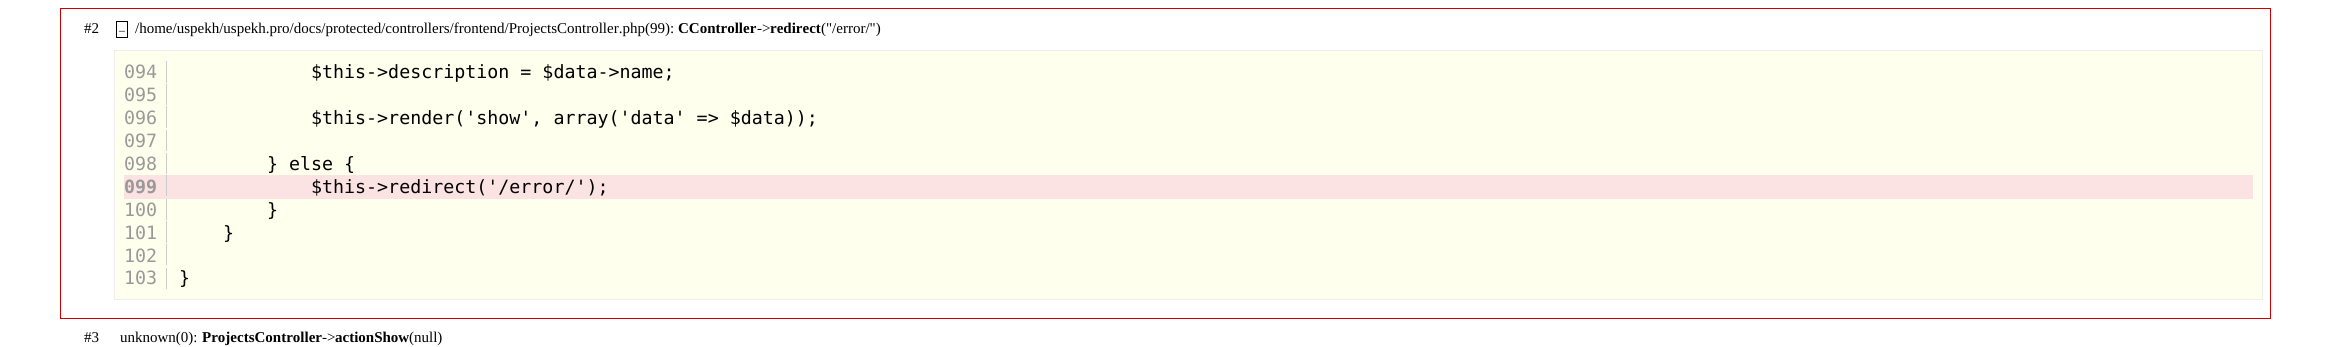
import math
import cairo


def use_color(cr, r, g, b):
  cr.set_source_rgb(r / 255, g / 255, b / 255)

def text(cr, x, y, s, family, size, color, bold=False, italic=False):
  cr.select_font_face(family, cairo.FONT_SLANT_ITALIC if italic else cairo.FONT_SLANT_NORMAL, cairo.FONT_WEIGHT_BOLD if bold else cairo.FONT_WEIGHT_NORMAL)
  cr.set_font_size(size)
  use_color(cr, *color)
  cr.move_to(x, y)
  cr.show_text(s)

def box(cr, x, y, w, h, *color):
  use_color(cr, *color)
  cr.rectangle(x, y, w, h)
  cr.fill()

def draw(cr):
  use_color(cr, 255, 255, 255)
  cr.paint()
  box(cr, 60, 8, 2211, 1, 204, 0, 0)
  box(cr, 2270, 8, 1, 311, 204, 0, 0)
  box(cr, 60, 318, 2211, 1, 204, 0, 0)
  box(cr, 60, 8, 1, 311, 204, 0, 0)
  cr.rectangle(116.5, 21.5, 11, 16)
  use_color(cr, 0, 0, 0)
  cr.set_line_width(1)
  cr.stroke()
  use_color(cr, 255, 255, 238)
  cr.rectangle(114.5, 50.5, 2148, 249)
  cr.fill_preserve()
  use_color(cr, 238, 238, 238)
  cr.stroke()
  box(cr, 166, 61, 1, 22, 204, 204, 204)
  box(cr, 166, 84, 1, 21, 204, 204, 204)
  box(cr, 166, 106, 1, 22, 204, 204, 204)
  box(cr, 166, 130, 1, 21, 204, 204, 204)
  box(cr, 166, 153, 1, 21, 204, 204, 204)
  box(cr, 124, 175, 2129, 24, 252, 227, 227)
  box(cr, 166, 175, 1, 21, 204, 204, 204)
  box(cr, 166, 199, 1, 21, 204, 204, 204)
  box(cr, 166, 221, 1, 22, 204, 204, 204)
  box(cr, 166, 244, 1, 21, 204, 204, 204)
  box(cr, 166, 268, 1, 21, 204, 204, 204)
  text(cr, 84, 33, "#2", "Liberation Serif", 15, (0, 0, 0))
  text(cr, 119, 34, "–", "Liberation Serif", 12, (0, 0, 0))
  text(cr, 135, 33, "/home/uspekh/uspekh.pro/docs/protected/controllers/frontend/ProjectsController.php(99):", "Liberation Serif", 15, (0, 0, 0))
  text(cr, 678, 33, "CController", "Liberation Serif", 15, (0, 0, 0), bold=True)
  text(cr, 757, 33, "->", "Liberation Serif", 15, (0, 0, 0))
  text(cr, 770, 33, "redirect", "Liberation Serif", 15, (0, 0, 0), bold=True)
  text(cr, 821, 33, "(\"/error/\")", "Liberation Serif", 15, (0, 0, 0))
  text(cr, 124, 78, "094", "DejaVu Sans Mono", 18.3, (153, 153, 153))
  text(cr, 311, 78, "$this->description = $data->name;", "DejaVu Sans Mono", 18.3, (0, 0, 0))
  text(cr, 124, 101, "095", "DejaVu Sans Mono", 18.3, (153, 153, 153))
  text(cr, 124, 124, "096", "DejaVu Sans Mono", 18.3, (153, 153, 153))
  text(cr, 311, 124, "$this->render('show', array('data' => $data));", "DejaVu Sans Mono", 18.3, (0, 0, 0))
  text(cr, 124, 147, "097", "DejaVu Sans Mono", 18.3, (153, 153, 153))
  text(cr, 124, 170, "098", "DejaVu Sans Mono", 18.3, (153, 153, 153))
  text(cr, 267, 170, "} else {", "DejaVu Sans Mono", 18.3, (0, 0, 0))
  text(cr, 124, 193, "099", "DejaVu Sans Mono", 18.3, (153, 153, 153), bold=True)
  text(cr, 311, 193, "$this->redirect('/error/');", "DejaVu Sans Mono", 18.3, (0, 0, 0))
  text(cr, 124, 216, "100", "DejaVu Sans Mono", 18.3, (153, 153, 153))
  text(cr, 267, 216, "}", "DejaVu Sans Mono", 18.3, (0, 0, 0))
  text(cr, 124, 239, "101", "DejaVu Sans Mono", 18.3, (153, 153, 153))
  text(cr, 223, 239, "}", "DejaVu Sans Mono", 18.3, (0, 0, 0))
  text(cr, 124, 262, "102", "DejaVu Sans Mono", 18.3, (153, 153, 153))
  text(cr, 124, 284, "103", "DejaVu Sans Mono", 18.3, (153, 153, 153))
  text(cr, 179, 284, "}", "DejaVu Sans Mono", 18.3, (0, 0, 0))
  text(cr, 84, 342, "#3", "Liberation Serif", 15, (0, 0, 0))
  text(cr, 120, 342, "unknown(0):", "Liberation Serif", 15, (0, 0, 0))
  text(cr, 202, 342, "ProjectsController", "Liberation Serif", 15, (0, 0, 0), bold=True)
  text(cr, 322, 342, "->", "Liberation Serif", 15, (0, 0, 0))
  text(cr, 335, 342, "actionShow", "Liberation Serif", 15, (0, 0, 0), bold=True)
  text(cr, 409, 342, "(null)", "Liberation Serif", 15, (0, 0, 0))


surface = cairo.ImageSurface(cairo.FORMAT_RGB24, 2331, 347)
cr = cairo.Context(surface)
options = cairo.FontOptions()
options.set_hint_metrics(cairo.HINT_METRICS_OFF)
options.set_hint_style(cairo.HINT_STYLE_NONE)
cr.set_font_options(options)
cr.set_miter_limit(4)
draw(cr)
surface.write_to_png("out.png")
